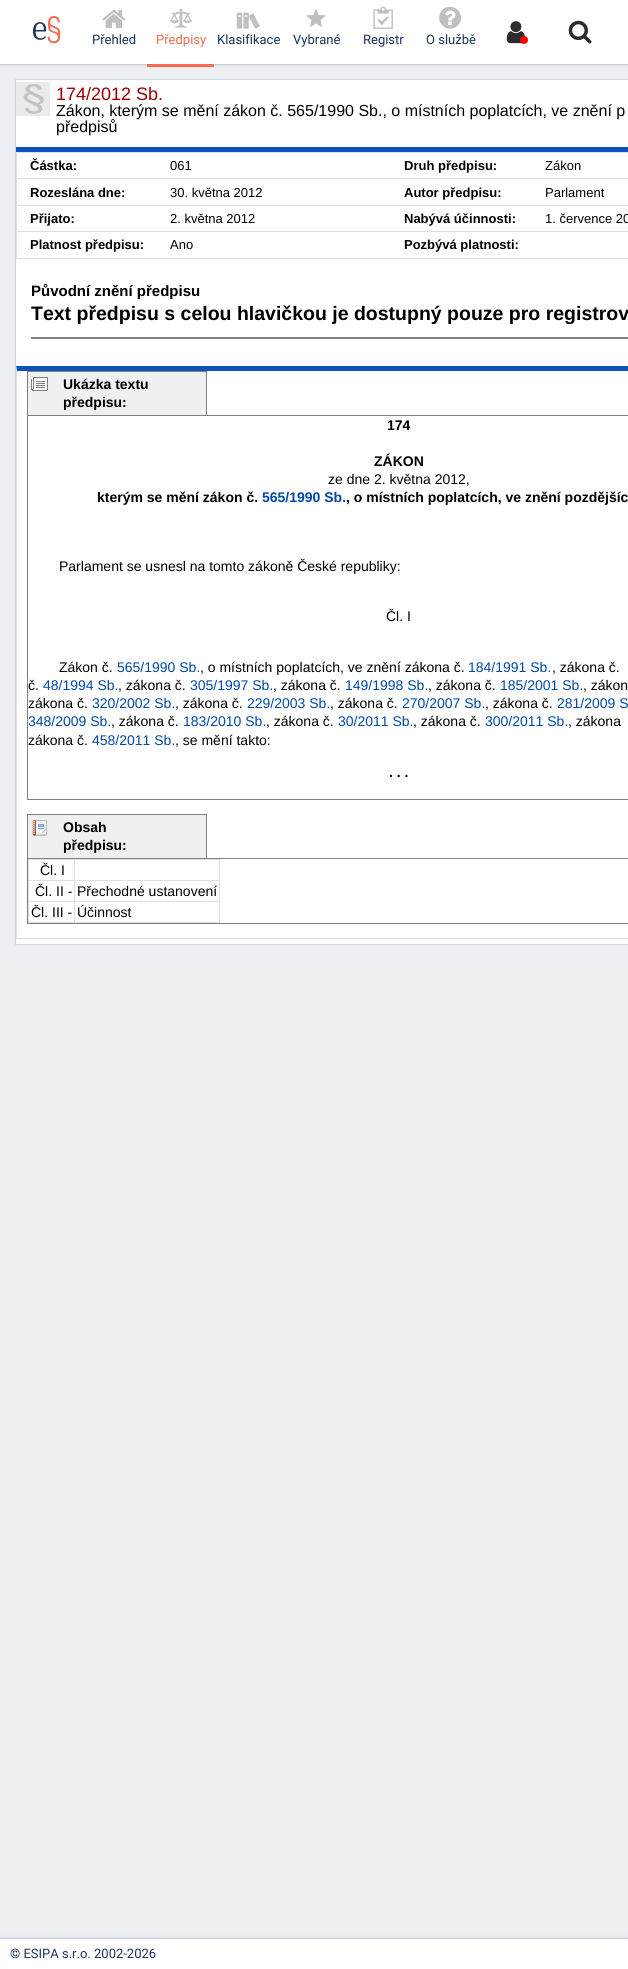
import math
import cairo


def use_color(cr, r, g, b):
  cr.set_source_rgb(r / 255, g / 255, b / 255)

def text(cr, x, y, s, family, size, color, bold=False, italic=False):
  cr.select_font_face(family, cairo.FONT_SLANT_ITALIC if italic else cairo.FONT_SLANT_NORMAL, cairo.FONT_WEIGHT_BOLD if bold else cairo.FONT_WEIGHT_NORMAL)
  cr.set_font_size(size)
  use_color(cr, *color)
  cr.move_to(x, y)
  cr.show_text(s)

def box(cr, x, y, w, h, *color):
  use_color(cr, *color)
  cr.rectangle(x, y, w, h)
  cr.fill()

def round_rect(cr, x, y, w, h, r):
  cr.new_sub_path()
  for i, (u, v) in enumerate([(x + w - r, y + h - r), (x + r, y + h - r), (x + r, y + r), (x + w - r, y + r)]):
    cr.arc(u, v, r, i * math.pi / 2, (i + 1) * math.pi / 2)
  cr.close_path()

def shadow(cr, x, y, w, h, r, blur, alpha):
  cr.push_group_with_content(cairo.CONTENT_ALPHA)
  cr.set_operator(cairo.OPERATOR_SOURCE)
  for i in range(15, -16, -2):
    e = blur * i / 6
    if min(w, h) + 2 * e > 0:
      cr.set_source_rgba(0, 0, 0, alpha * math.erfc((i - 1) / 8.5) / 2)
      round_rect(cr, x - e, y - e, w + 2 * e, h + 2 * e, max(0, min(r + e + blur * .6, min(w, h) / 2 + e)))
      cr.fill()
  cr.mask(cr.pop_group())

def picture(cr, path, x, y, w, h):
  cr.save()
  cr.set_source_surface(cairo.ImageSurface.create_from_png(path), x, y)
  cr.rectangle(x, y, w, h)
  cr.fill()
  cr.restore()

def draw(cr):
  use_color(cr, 237, 239, 242)
  cr.paint()
  use_color(cr, 27, 50, 95)
  shadow(cr, 0, 0, 628, 64, 0, 1.5, 0.4)
  box(cr, 0, 0, 628, 64, 255, 255, 255)
  picture(cr, "img_01.png", 33, 16, 28, 28)
  picture(cr, "img_02.png", 102, 9, 24, 20)
  box(cr, 147, 64, 67, 3, 242, 108, 79)
  picture(cr, "img_03.png", 170, 8, 22, 20)
  picture(cr, "img_04.png", 236, 12, 24, 17)
  picture(cr, "img_05.png", 306, 8, 20, 19)
  picture(cr, "img_06.png", 373, 6, 20, 23)
  picture(cr, "img_07.png", 439, 6, 22, 23)
  picture(cr, "img_08.png", 506, 21, 19, 23)
  use_color(cr, 255, 0, 0)
  cr.arc(524, 40, 4, 0, 2 * math.pi)
  cr.fill()
  picture(cr, "img_09.png", 568, 20, 24, 24)
  use_color(cr, 27, 50, 95)
  shadow(cr, 16, 80, 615, 864, 0, 1, 0.4)
  box(cr, 16, 80, 612, 864, 255, 255, 255)
  picture(cr, "img_10.png", 16, 82, 34, 34)
  box(cr, 16, 147, 612, 5, 14, 83, 187)
  box(cr, 16, 152, 612, 1, 223, 223, 223)
  box(cr, 16, 258, 612, 1, 223, 223, 223)
  box(cr, 16, 152, 1, 107, 223, 223, 223)
  box(cr, 16, 178, 612, 1, 223, 223, 223)
  box(cr, 16, 205, 612, 1, 223, 223, 223)
  box(cr, 16, 231, 612, 1, 223, 223, 223)
  box(cr, 31, 337, 597, 2, 128, 128, 128)
  use_color(cr, 14, 83, 187)
  cr.new_path()
  cr.move_to(16, 366)
  cr.line_to(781, 366)
  cr.line_to(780, 371)
  cr.line_to(17, 371)
  cr.close_path()
  cr.fill()
  box(cr, 16, 938, 612, 1, 223, 223, 223)
  cr.new_path()
  cr.move_to(16, 939)
  cr.line_to(16, 366)
  cr.line_to(17, 371)
  cr.line_to(17, 938)
  cr.close_path()
  cr.fill()
  box(cr, 28, 372, 178, 43, 240, 240, 240)
  picture(cr, "img_11.png", 31, 377, 17, 14)
  box(cr, 27, 371, 180, 1, 128, 128, 128)
  box(cr, 206, 371, 1, 44, 128, 128, 128)
  box(cr, 27, 371, 1, 44, 128, 128, 128)
  cr.rectangle(27.5, 415.5, 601, 384)
  cr.set_line_width(1)
  cr.stroke()
  box(cr, 28, 815, 178, 43, 240, 240, 240)
  picture(cr, "img_12.png", 31, 820, 16, 16)
  box(cr, 27, 814, 180, 1, 128, 128, 128)
  box(cr, 206, 814, 1, 44, 128, 128, 128)
  box(cr, 27, 814, 1, 44, 128, 128, 128)
  cr.rectangle(27.5, 858.5, 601, 65)
  cr.stroke()
  box(cr, 74, 859, 146, 1, 223, 223, 223)
  box(cr, 74, 880, 146, 1, 223, 223, 223)
  box(cr, 74, 901, 146, 1, 223, 223, 223)
  box(cr, 219, 901, 1, 22, 223, 223, 223)
  box(cr, 74, 922, 146, 1, 223, 223, 223)
  box(cr, 74, 901, 1, 22, 223, 223, 223)
  box(cr, 28, 901, 47, 1, 223, 223, 223)
  box(cr, 74, 880, 1, 22, 223, 223, 223)
  box(cr, 28, 880, 47, 1, 223, 223, 223)
  box(cr, 74, 859, 1, 22, 223, 223, 223)
  box(cr, 28, 859, 47, 1, 223, 223, 223)
  box(cr, 28, 922, 47, 1, 223, 223, 223)
  box(cr, 28, 901, 1, 22, 223, 223, 223)
  box(cr, 28, 880, 1, 22, 223, 223, 223)
  box(cr, 28, 859, 1, 22, 223, 223, 223)
  box(cr, 219, 880, 1, 22, 223, 223, 223)
  box(cr, 219, 859, 1, 22, 223, 223, 223)
  use_color(cr, 27, 50, 95)
  shadow(cr, 0, 1939, 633, 30, 0, 1.5, 0.4)
  box(cr, 0, 1939, 628, 30, 255, 255, 255)
  text(cr, 92, 44, "Přehled", "Roboto", 13, (27, 50, 95))
  text(cr, 156, 44, "Předpisy", "Roboto", 13, (242, 108, 79))
  text(cr, 217, 44, "Klasifikace", "Roboto", 13, (27, 50, 95))
  text(cr, 293, 44, "Vybrané", "Roboto", 13, (27, 50, 95))
  text(cr, 363, 44, "Registr", "Roboto", 13, (27, 50, 95))
  text(cr, 426, 44, "O službě", "Roboto", 13, (27, 50, 95))
  text(cr, 56, 100, "174/2012 Sb.", "Liberation Sans", 18, (152, 0, 0))
  text(cr, 56, 116, "Zákon, kterým se mění zákon č. 565/1990 Sb., o místních poplatcích, ve znění p", "Liberation Sans", 16, (0, 0, 0))
  text(cr, 56, 132, "předpisů", "Liberation Sans", 16, (0, 0, 0))
  text(cr, 30, 170, "Částka:", "Liberation Sans", 13, (0, 0, 0), bold=True)
  text(cr, 170, 170, "061", "Liberation Sans", 13, (0, 0, 0))
  text(cr, 404, 170, "Druh předpisu:", "Liberation Sans", 13, (0, 0, 0), bold=True)
  text(cr, 545, 170, "Zákon", "Liberation Sans", 13, (0, 0, 0))
  text(cr, 30, 197, "Rozeslána dne:", "Liberation Sans", 13, (0, 0, 0), bold=True)
  text(cr, 170, 197, "30. května 2012", "Liberation Sans", 13, (0, 0, 0))
  text(cr, 404, 197, "Autor předpisu:", "Liberation Sans", 13, (0, 0, 0), bold=True)
  text(cr, 545, 197, "Parlament", "Liberation Sans", 13, (0, 0, 0))
  text(cr, 30, 223, "Přijato:", "Liberation Sans", 13, (0, 0, 0), bold=True)
  text(cr, 170, 223, "2. května 2012", "Liberation Sans", 13, (0, 0, 0))
  text(cr, 404, 223, "Nabývá účinnosti:", "Liberation Sans", 13, (0, 0, 0), bold=True)
  text(cr, 545, 223, "1. července 20", "Liberation Sans", 13, (0, 0, 0))
  text(cr, 30, 249, "Platnost předpisu:", "Liberation Sans", 13, (0, 0, 0), bold=True)
  text(cr, 170, 249, "Ano", "Liberation Sans", 13, (0, 0, 0))
  text(cr, 404, 249, "Pozbývá platnosti:", "Liberation Sans", 13, (0, 0, 0), bold=True)
  text(cr, 31, 296, "Původní znění předpisu", "Liberation Sans", 15, (0, 0, 0), bold=True)
  text(cr, 31, 320, "Text předpisu s celou hlavičkou je dostupný pouze pro registrov", "Liberation Sans", 19.5, (0, 0, 0), bold=True)
  text(cr, 63, 389, "Ukázka textu", "Liberation Sans", 14, (0, 0, 0), bold=True)
  text(cr, 63, 407, "předpisu:", "Liberation Sans", 14, (0, 0, 0), bold=True)
  text(cr, 387, 430, "174", "Liberation Sans", 14, (0, 0, 0), bold=True)
  text(cr, 374, 466, "ZÁKON", "Liberation Sans", 14, (0, 0, 0), bold=True)
  text(cr, 328, 484, "ze dne 2. května 2012,", "Liberation Sans", 14, (0, 0, 0))
  text(cr, 97, 502, "kterým se mění zákon č.", "Liberation Sans", 14, (0, 0, 0), bold=True)
  text(cr, 262, 502, "565/1990 Sb.", "Liberation Sans", 14, (0, 73, 167), bold=True)
  text(cr, 346, 502, ", o místních poplatcích, ve znění pozdějšíc", "Liberation Sans", 14, (0, 0, 0), bold=True)
  text(cr, 59, 571, "Parlament se usnesl na tomto zákoně České republiky:", "Liberation Sans", 14, (0, 0, 0))
  text(cr, 386, 621, "Čl. I", "Liberation Sans", 14, (0, 0, 0))
  text(cr, 59, 672, "Zákon č.", "Liberation Sans", 14, (0, 0, 0))
  text(cr, 117, 672, "565/1990 Sb.", "Liberation Sans", 14, (0, 73, 167))
  text(cr, 200, 672, ", o místních poplatcích, ve znění zákona č.", "Liberation Sans", 14, (0, 0, 0))
  text(cr, 468, 672, "184/1991 Sb.", "Liberation Sans", 14, (0, 73, 167))
  text(cr, 552, 672, ", zákona č.", "Liberation Sans", 14, (0, 0, 0))
  text(cr, 28, 690, "č.", "Liberation Sans", 14, (0, 0, 0))
  text(cr, 43, 690, "48/1994 Sb.", "Liberation Sans", 14, (0, 73, 167))
  text(cr, 118, 690, ", zákona č.", "Liberation Sans", 14, (0, 0, 0))
  text(cr, 190, 690, "305/1997 Sb.", "Liberation Sans", 14, (0, 73, 167))
  text(cr, 273, 690, ", zákona č.", "Liberation Sans", 14, (0, 0, 0))
  text(cr, 345, 690, "149/1998 Sb.", "Liberation Sans", 14, (0, 73, 167))
  text(cr, 428, 690, ", zákona č.", "Liberation Sans", 14, (0, 0, 0))
  text(cr, 500, 690, "185/2001 Sb.", "Liberation Sans", 14, (0, 73, 167))
  text(cr, 583, 690, ", zákon", "Liberation Sans", 14, (0, 0, 0))
  text(cr, 28, 708, "zákona č.", "Liberation Sans", 14, (0, 0, 0))
  text(cr, 92, 708, "320/2002 Sb.", "Liberation Sans", 14, (0, 73, 167))
  text(cr, 175, 708, ", zákona č.", "Liberation Sans", 14, (0, 0, 0))
  text(cr, 247, 708, "229/2003 Sb.", "Liberation Sans", 14, (0, 73, 167))
  text(cr, 330, 708, ", zákona č.", "Liberation Sans", 14, (0, 0, 0))
  text(cr, 402, 708, "270/2007 Sb.", "Liberation Sans", 14, (0, 73, 167))
  text(cr, 485, 708, ", zákona č.", "Liberation Sans", 14, (0, 0, 0))
  text(cr, 557, 708, "281/2009 S", "Liberation Sans", 14, (0, 73, 167))
  text(cr, 28, 726, "348/2009 Sb.", "Liberation Sans", 14, (0, 73, 167))
  text(cr, 111, 726, ", zákona č.", "Liberation Sans", 14, (0, 0, 0))
  text(cr, 183, 726, "183/2010 Sb.", "Liberation Sans", 14, (0, 73, 167))
  text(cr, 266, 726, ", zákona č.", "Liberation Sans", 14, (0, 0, 0))
  text(cr, 338, 726, "30/2011 Sb.", "Liberation Sans", 14, (0, 73, 167))
  text(cr, 413, 726, ", zákona č.", "Liberation Sans", 14, (0, 0, 0))
  text(cr, 485, 726, "300/2011 Sb.", "Liberation Sans", 14, (0, 73, 167))
  text(cr, 568, 726, ", zákona", "Liberation Sans", 14, (0, 0, 0))
  text(cr, 28, 745, "zákona č.", "Liberation Sans", 14, (0, 0, 0))
  text(cr, 92, 745, "458/2011 Sb.", "Liberation Sans", 14, (0, 73, 167))
  text(cr, 175, 745, ", se mění takto:", "Liberation Sans", 14, (0, 0, 0))
  text(cr, 389, 777, ". . .", "Liberation Sans", 14, (0, 0, 0), bold=True)
  text(cr, 63, 832, "Obsah", "Liberation Sans", 14, (0, 0, 0), bold=True)
  text(cr, 63, 850, "předpisu:", "Liberation Sans", 14, (0, 0, 0), bold=True)
  text(cr, 40, 875, "Čl. I", "Liberation Sans", 14, (0, 0, 0))
  text(cr, 35, 896, "Čl. II -", "Liberation Sans", 14, (0, 0, 0))
  text(cr, 77, 896, "Přechodné ustanovení", "Liberation Sans", 14, (0, 0, 0))
  text(cr, 31, 917, "Čl. III -", "Liberation Sans", 14, (0, 0, 0))
  text(cr, 77, 917, "Účinnost", "Liberation Sans", 14, (0, 0, 0))
  text(cr, 10, 1958, "© ESIPA s.r.o. 2002-2026", "Roboto", 13, (27, 50, 95))


surface = cairo.ImageSurface(cairo.FORMAT_RGB24, 628, 1969)
cr = cairo.Context(surface)
options = cairo.FontOptions()
options.set_hint_metrics(cairo.HINT_METRICS_OFF)
options.set_hint_style(cairo.HINT_STYLE_NONE)
cr.set_font_options(options)
cr.set_miter_limit(4)
draw(cr)
surface.write_to_png("out.png")
